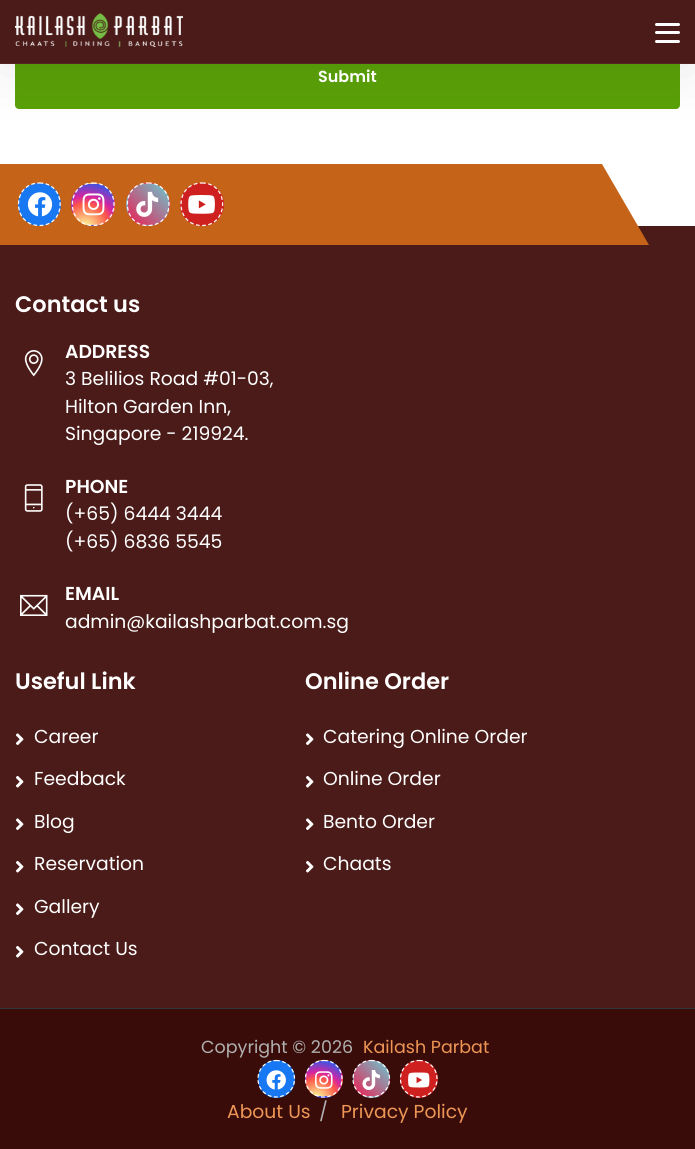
import math
import cairo


def use_color(cr, r, g, b):
  cr.set_source_rgb(r / 255, g / 255, b / 255)

def text(cr, x, y, s, family, size, color, bold=False, italic=False):
  cr.select_font_face(family, cairo.FONT_SLANT_ITALIC if italic else cairo.FONT_SLANT_NORMAL, cairo.FONT_WEIGHT_BOLD if bold else cairo.FONT_WEIGHT_NORMAL)
  cr.set_font_size(size)
  use_color(cr, *color)
  cr.move_to(x, y)
  cr.show_text(s)

def box(cr, x, y, w, h, *color):
  use_color(cr, *color)
  cr.rectangle(x, y, w, h)
  cr.fill()

def round_rect(cr, x, y, w, h, r):
  cr.new_sub_path()
  for i, (u, v) in enumerate([(x + w - r, y + h - r), (x + r, y + h - r), (x + r, y + r), (x + w - r, y + r)]):
    cr.arc(u, v, r, i * math.pi / 2, (i + 1) * math.pi / 2)
  cr.close_path()

def shadow(cr, x, y, w, h, r, blur, alpha):
  cr.push_group_with_content(cairo.CONTENT_ALPHA)
  cr.set_operator(cairo.OPERATOR_SOURCE)
  for i in range(15, -16, -2):
    e = blur * i / 6
    if min(w, h) + 2 * e > 0:
      cr.set_source_rgba(0, 0, 0, alpha * math.erfc((i - 1) / 8.5) / 2)
      round_rect(cr, x - e, y - e, w + 2 * e, h + 2 * e, max(0, min(r + e + blur * .6, min(w, h) / 2 + e)))
      cr.fill()
  cr.mask(cr.pop_group())

def picture(cr, path, x, y, w, h):
  cr.save()
  cr.set_source_surface(cairo.ImageSurface.create_from_png(path), x, y)
  cr.rectangle(x, y, w, h)
  cr.fill()
  cr.restore()

def draw(cr):
  use_color(cr, 255, 255, 255)
  cr.paint()
  use_color(cr, 90, 161, 8)
  round_rect(cr, 15, 46, 665, 63, 4)
  cr.fill()
  use_color(cr, 0, 0, 0)
  shadow(cr, 0, 0, 695, 64, 0, 31, 0.1)
  box(cr, 0, 0, 695, 63, 74, 27, 24)
  box(cr, 0, 63, 695, 1, 83, 38, 36)
  picture(cr, "img_01.png", 15, 13, 168, 34)
  use_color(cr, 255, 255, 255)
  round_rect(cr, 655, 23, 25, 3, 1.5)
  cr.fill()
  round_rect(cr, 655, 31, 25, 3, 1.5)
  cr.fill()
  round_rect(cr, 655, 40, 25, 3, 1.5)
  cr.fill()
  box(cr, 0, 226, 695, 782, 74, 27, 24)
  use_color(cr, 197, 99, 25)
  cr.new_path()
  cr.move_to(-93, 164)
  cr.line_to(602, 164)
  cr.line_to(649, 245)
  cr.line_to(-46, 245)
  cr.close_path()
  cr.fill()
  use_color(cr, 24, 119, 242)
  cr.arc(39.5, 204.5, 21.5, 0, 2 * math.pi)
  cr.fill()
  cr.new_path()
  cr.move_to(39.5, 183)
  cr.curve_to(67, 183, 67, 225.5, 39.5, 225.5)
  cr.curve_to(11.5, 225.5, 11.5, 183, 39.5, 183)
  cr.close_path()
  use_color(cr, 255, 255, 255)
  cr.set_line_width(1.2)
  cr.set_dash([3.75, 2.5])
  cr.stroke()
  picture(cr, "img_02.png", 27, 192, 26, 25)
  cr.save()
  round_rect(cr, 71, 183, 44, 43, 21.5)
  cr.clip()
  gradient = cairo.RadialGradient(85, 187, 0, 85, 187, 53)
  gradient.add_color_stop_rgba(0, 0.992, 0.957, 0.592, 1)
  gradient.add_color_stop_rgba(0.05, 0.992, 0.957, 0.592, 1)
  gradient.add_color_stop_rgba(0.45, 0.992, 0.349, 0.286, 1)
  gradient.add_color_stop_rgba(0.6, 0.839, 0.141, 0.624, 1)
  gradient.add_color_stop_rgba(0.9, 0.157, 0.353, 0.922, 1)
  cr.set_source(gradient)
  cr.rectangle(86, 183, 14, 1)
  cr.fill()
  gradient = cairo.RadialGradient(44, 228, 0, 44, 228, 53)
  gradient.add_color_stop_rgba(0, 0.992, 0.957, 0.592, 1)
  gradient.add_color_stop_rgba(0.05, 0.992, 0.957, 0.592, 1)
  gradient.add_color_stop_rgba(0.45, 0.992, 0.349, 0.286, 1)
  gradient.add_color_stop_rgba(0.6, 0.839, 0.141, 0.624, 1)
  gradient.add_color_stop_rgba(0.9, 0.157, 0.353, 0.922, 1)
  cr.set_source(gradient)
  cr.rectangle(71, 195, 2, 19)
  cr.fill()
  gradient = cairo.RadialGradient(85, 228, 0, 85, 228, 53)
  gradient.add_color_stop_rgba(0, 0.992, 0.957, 0.592, 1)
  gradient.add_color_stop_rgba(0.05, 0.992, 0.957, 0.592, 1)
  gradient.add_color_stop_rgba(0.45, 0.992, 0.349, 0.286, 1)
  gradient.add_color_stop_rgba(0.6, 0.839, 0.141, 0.624, 1)
  gradient.add_color_stop_rgba(0.9, 0.157, 0.353, 0.922, 1)
  cr.set_source(gradient)
  cr.rectangle(73, 184, 41, 41)
  cr.fill()
  gradient = cairo.RadialGradient(126, 228, 0, 126, 228, 53)
  gradient.add_color_stop_rgba(0, 0.992, 0.957, 0.592, 1)
  gradient.add_color_stop_rgba(0.05, 0.992, 0.957, 0.592, 1)
  gradient.add_color_stop_rgba(0.45, 0.992, 0.349, 0.286, 1)
  gradient.add_color_stop_rgba(0.6, 0.839, 0.141, 0.624, 1)
  gradient.add_color_stop_rgba(0.9, 0.157, 0.353, 0.922, 1)
  cr.set_source(gradient)
  cr.rectangle(114, 198, 1, 13)
  cr.fill()
  gradient = cairo.RadialGradient(85, 269, 0, 85, 269, 53)
  gradient.add_color_stop_rgba(0, 0.992, 0.957, 0.592, 1)
  gradient.add_color_stop_rgba(0.05, 0.992, 0.957, 0.592, 1)
  gradient.add_color_stop_rgba(0.45, 0.992, 0.349, 0.286, 1)
  gradient.add_color_stop_rgba(0.6, 0.839, 0.141, 0.624, 1)
  gradient.add_color_stop_rgba(0.9, 0.157, 0.353, 0.922, 1)
  cr.set_source(gradient)
  cr.rectangle(86, 225, 14, 1)
  cr.fill()
  cr.restore()
  cr.new_path()
  cr.move_to(93, 183)
  cr.curve_to(121, 183, 121, 225.5, 93, 225.5)
  cr.curve_to(65.5, 225.5, 65.5, 183, 93, 183)
  cr.close_path()
  cr.stroke()
  picture(cr, "img_03.png", 82, 193, 23, 23)
  cr.save()
  round_rect(cr, 126, 183, 44, 43, 21.5)
  cr.clip()
  gradient = cairo.LinearGradient(128, 184, 169, 143)
  gradient.add_color_stop_rgba(0, 0.933, 0.114, 0.322, 1)
  gradient.add_color_stop_rgba(1, 0.412, 0.788, 0.816, 1)
  cr.set_source(gradient)
  cr.rectangle(141, 183, 14, 1)
  cr.fill()
  gradient = cairo.LinearGradient(86, 225, 128, 184)
  gradient.add_color_stop_rgba(0, 0.933, 0.114, 0.322, 1)
  gradient.add_color_stop_rgba(1, 0.412, 0.788, 0.816, 1)
  cr.set_source(gradient)
  cr.rectangle(126, 195, 2, 19)
  cr.fill()
  gradient = cairo.LinearGradient(128, 225, 169, 184)
  gradient.add_color_stop_rgba(0, 0.933, 0.114, 0.322, 1)
  gradient.add_color_stop_rgba(1, 0.412, 0.788, 0.816, 1)
  cr.set_source(gradient)
  cr.rectangle(128, 184, 41, 41)
  cr.fill()
  gradient = cairo.LinearGradient(169, 225, 210, 184)
  gradient.add_color_stop_rgba(0, 0.933, 0.114, 0.322, 1)
  gradient.add_color_stop_rgba(1, 0.412, 0.788, 0.816, 1)
  cr.set_source(gradient)
  cr.rectangle(169, 198, 1, 13)
  cr.fill()
  gradient = cairo.LinearGradient(128, 266, 169, 225)
  gradient.add_color_stop_rgba(0, 0.933, 0.114, 0.322, 1)
  gradient.add_color_stop_rgba(1, 0.412, 0.788, 0.816, 1)
  cr.set_source(gradient)
  cr.rectangle(141, 225, 14, 1)
  cr.fill()
  cr.restore()
  cr.new_path()
  cr.move_to(148, 183)
  cr.curve_to(176, 183, 176, 225.5, 148, 225.5)
  cr.curve_to(120.5, 225.5, 120.5, 183, 148, 183)
  cr.close_path()
  cr.stroke()
  picture(cr, "img_04.png", 136, 191, 23, 26)
  use_color(cr, 205, 32, 31)
  round_rect(cr, 180, 183, 44, 43, 21.5)
  cr.fill()
  cr.new_path()
  cr.move_to(202, 183)
  cr.curve_to(229.5, 183, 229.5, 225.5, 202, 225.5)
  cr.curve_to(174, 225.5, 174, 183, 202, 183)
  cr.close_path()
  use_color(cr, 255, 255, 255)
  cr.stroke()
  picture(cr, "img_05.png", 188, 195, 27, 19)
  picture(cr, "img_06.png", 24, 350, 19, 27)
  picture(cr, "img_07.png", 24, 484, 19, 28)
  picture(cr, "img_08.png", 20, 594, 28, 22)
  picture(cr, "img_09.png", 16, 733, 8, 12)
  picture(cr, "img_10.png", 16, 775, 8, 13)
  picture(cr, "img_09.png", 16, 818, 8, 12)
  picture(cr, "img_10.png", 16, 860, 8, 13)
  picture(cr, "img_09.png", 16, 903, 8, 12)
  picture(cr, "img_10.png", 16, 945, 8, 13)
  picture(cr, "img_09.png", 306, 733, 8, 12)
  picture(cr, "img_10.png", 306, 775, 8, 13)
  picture(cr, "img_09.png", 306, 818, 8, 12)
  picture(cr, "img_10.png", 306, 860, 8, 13)
  box(cr, 0, 1009, 695, 140, 57, 12, 9)
  box(cr, 0, 1008, 695, 1, 48, 54, 57)
  use_color(cr, 24, 119, 242)
  round_rect(cr, 258, 1060, 37, 38, 18.5)
  cr.fill()
  cr.new_path()
  cr.move_to(276, 1060.5)
  cr.curve_to(286.5, 1060.5, 294.5, 1068.5, 294.5, 1079)
  cr.curve_to(294.5, 1089, 286.5, 1097, 276, 1097)
  cr.curve_to(266, 1097, 258, 1089, 258, 1079)
  cr.curve_to(258, 1068.5, 266, 1060.5, 276, 1060.5)
  cr.close_path()
  use_color(cr, 255, 255, 255)
  cr.stroke()
  picture(cr, "img_11.png", 266, 1070, 20, 20)
  cr.save()
  round_rect(cr, 305, 1060, 38, 38, 19)
  cr.clip()
  gradient = cairo.RadialGradient(317, 1064, 0, 317, 1064, 45)
  gradient.add_color_stop_rgba(0, 0.992, 0.957, 0.592, 1)
  gradient.add_color_stop_rgba(0.05, 0.992, 0.957, 0.592, 1)
  gradient.add_color_stop_rgba(0.45, 0.992, 0.349, 0.286, 1)
  gradient.add_color_stop_rgba(0.6, 0.839, 0.141, 0.624, 1)
  gradient.add_color_stop_rgba(0.9, 0.157, 0.353, 0.922, 1)
  cr.set_source(gradient)
  cr.rectangle(318, 1060, 12, 1)
  cr.fill()
  gradient = cairo.RadialGradient(282, 1099, 0, 282, 1099, 45)
  gradient.add_color_stop_rgba(0, 0.992, 0.957, 0.592, 1)
  gradient.add_color_stop_rgba(0.05, 0.992, 0.957, 0.592, 1)
  gradient.add_color_stop_rgba(0.45, 0.992, 0.349, 0.286, 1)
  gradient.add_color_stop_rgba(0.6, 0.839, 0.141, 0.624, 1)
  gradient.add_color_stop_rgba(0.9, 0.157, 0.353, 0.922, 1)
  cr.set_source(gradient)
  cr.rectangle(305, 1073, 1, 12)
  cr.fill()
  gradient = cairo.RadialGradient(317, 1099, 0, 317, 1099, 45)
  gradient.add_color_stop_rgba(0, 0.992, 0.957, 0.592, 1)
  gradient.add_color_stop_rgba(0.05, 0.992, 0.957, 0.592, 1)
  gradient.add_color_stop_rgba(0.45, 0.992, 0.349, 0.286, 1)
  gradient.add_color_stop_rgba(0.6, 0.839, 0.141, 0.624, 1)
  gradient.add_color_stop_rgba(0.9, 0.157, 0.353, 0.922, 1)
  cr.set_source(gradient)
  cr.rectangle(306, 1061, 35, 35)
  cr.fill()
  gradient = cairo.RadialGradient(352, 1099, 0, 352, 1099, 45)
  gradient.add_color_stop_rgba(0, 0.992, 0.957, 0.592, 1)
  gradient.add_color_stop_rgba(0.05, 0.992, 0.957, 0.592, 1)
  gradient.add_color_stop_rgba(0.45, 0.992, 0.349, 0.286, 1)
  gradient.add_color_stop_rgba(0.6, 0.839, 0.141, 0.624, 1)
  gradient.add_color_stop_rgba(0.9, 0.157, 0.353, 0.922, 1)
  cr.set_source(gradient)
  cr.rectangle(341, 1070, 2, 26)
  cr.fill()
  gradient = cairo.RadialGradient(317, 1134, 0, 317, 1134, 45)
  gradient.add_color_stop_rgba(0, 0.992, 0.957, 0.592, 1)
  gradient.add_color_stop_rgba(0.05, 0.992, 0.957, 0.592, 1)
  gradient.add_color_stop_rgba(0.45, 0.992, 0.349, 0.286, 1)
  gradient.add_color_stop_rgba(0.6, 0.839, 0.141, 0.624, 1)
  gradient.add_color_stop_rgba(0.9, 0.157, 0.353, 0.922, 1)
  cr.set_source(gradient)
  cr.rectangle(315, 1096, 26, 2)
  cr.fill()
  cr.restore()
  cr.new_path()
  cr.move_to(324, 1060.5)
  cr.curve_to(334, 1060.5, 342, 1068.5, 342, 1079)
  cr.curve_to(342, 1089, 334, 1097, 324, 1097)
  cr.curve_to(313.5, 1097, 305.5, 1089, 305.5, 1079)
  cr.curve_to(305.5, 1068.5, 313.5, 1060.5, 324, 1060.5)
  cr.close_path()
  cr.stroke()
  picture(cr, "img_12.png", 315, 1071, 18, 18)
  cr.save()
  round_rect(cr, 353, 1060, 37, 38, 18.5)
  cr.clip()
  gradient = cairo.LinearGradient(354, 1061, 389, 1026)
  gradient.add_color_stop_rgba(0, 0.933, 0.114, 0.322, 1)
  gradient.add_color_stop_rgba(1, 0.412, 0.788, 0.816, 1)
  cr.set_source(gradient)
  cr.rectangle(365, 1060, 13, 1)
  cr.fill()
  gradient = cairo.LinearGradient(319, 1096, 354, 1061)
  gradient.add_color_stop_rgba(0, 0.933, 0.114, 0.322, 1)
  gradient.add_color_stop_rgba(1, 0.412, 0.788, 0.816, 1)
  cr.set_source(gradient)
  cr.rectangle(353, 1072, 1, 14)
  cr.fill()
  gradient = cairo.LinearGradient(354, 1096, 389, 1061)
  gradient.add_color_stop_rgba(0, 0.933, 0.114, 0.322, 1)
  gradient.add_color_stop_rgba(1, 0.412, 0.788, 0.816, 1)
  cr.set_source(gradient)
  cr.rectangle(354, 1061, 35, 35)
  cr.fill()
  gradient = cairo.LinearGradient(389, 1096, 424, 1061)
  gradient.add_color_stop_rgba(0, 0.933, 0.114, 0.322, 1)
  gradient.add_color_stop_rgba(1, 0.412, 0.788, 0.816, 1)
  cr.set_source(gradient)
  cr.rectangle(389, 1072, 1, 14)
  cr.fill()
  gradient = cairo.LinearGradient(354, 1131, 389, 1096)
  gradient.add_color_stop_rgba(0, 0.933, 0.114, 0.322, 1)
  gradient.add_color_stop_rgba(1, 0.412, 0.788, 0.816, 1)
  cr.set_source(gradient)
  cr.rectangle(363, 1096, 17, 2)
  cr.fill()
  cr.restore()
  cr.new_path()
  cr.move_to(371, 1060.5)
  cr.curve_to(381.5, 1060.5, 389.5, 1068.5, 389.5, 1079)
  cr.curve_to(389.5, 1089, 381.5, 1097, 371, 1097)
  cr.curve_to(361, 1097, 353, 1089, 353, 1079)
  cr.curve_to(353, 1068.5, 361, 1060.5, 371, 1060.5)
  cr.close_path()
  cr.stroke()
  picture(cr, "img_13.png", 362, 1070, 18, 20)
  use_color(cr, 205, 32, 31)
  cr.arc(419, 1079, 19, 0, 2 * math.pi)
  cr.fill()
  cr.new_path()
  cr.move_to(419, 1060.5)
  cr.curve_to(429, 1060.5, 437, 1068.5, 437, 1079)
  cr.curve_to(437, 1089, 429, 1097, 419, 1097)
  cr.curve_to(408.5, 1097, 400.5, 1089, 400.5, 1079)
  cr.curve_to(400.5, 1068.5, 408.5, 1060.5, 419, 1060.5)
  cr.close_path()
  use_color(cr, 255, 255, 255)
  cr.stroke()
  picture(cr, "img_14.png", 408, 1072, 22, 16)
  text(cr, 318, 82, "Submit", "Poppins SemiBold", 16, (255, 255, 255))
  text(cr, 15, 312, "Contact us", "Poppins SemiBold", 22.5, (255, 255, 255))
  text(cr, 65, 358, "ADDRESS", "Poppins SemiBold", 18.75, (255, 255, 255))
  text(cr, 65, 385, "3 Belilios Road #01-03,", "Poppins", 18.75, (255, 255, 255))
  text(cr, 65, 413, "Hilton Garden Inn,", "Poppins", 18.75, (255, 255, 255))
  text(cr, 65, 440, "Singapore - 219924.", "Poppins", 18.75, (255, 255, 255))
  text(cr, 65, 493, "PHONE", "Poppins SemiBold", 18.75, (255, 255, 255))
  text(cr, 65, 520, "(+65) 6444 3444", "Poppins", 18.75, (255, 255, 255))
  text(cr, 65, 548, "(+65) 6836 5545", "Poppins", 18.75, (255, 255, 255))
  text(cr, 65, 600, "EMAIL", "Poppins SemiBold", 18.75, (255, 255, 255))
  text(cr, 65, 628, "admin@kailashparbat.com.sg", "Poppins", 18.75, (255, 255, 255))
  text(cr, 15, 689, "Useful Link", "Poppins SemiBold", 22.5, (255, 255, 255))
  text(cr, 34, 743, "Career", "Poppins", 18.75, (255, 255, 255))
  text(cr, 34, 785, "Feedback", "Poppins", 18.75, (255, 255, 255))
  text(cr, 34, 828, "Blog", "Poppins", 18.75, (255, 255, 255))
  text(cr, 34, 870, "Reservation", "Poppins", 18.75, (255, 255, 255))
  text(cr, 34, 913, "Gallery", "Poppins", 18.75, (255, 255, 255))
  text(cr, 34, 955, "Contact Us", "Poppins", 18.75, (255, 255, 255))
  text(cr, 305, 689, "Online Order", "Poppins SemiBold", 22.5, (255, 255, 255))
  text(cr, 323, 743, "Catering Online Order", "Poppins", 18.75, (255, 255, 255))
  text(cr, 323, 785, "Online Order", "Poppins", 18.75, (255, 255, 255))
  text(cr, 323, 828, "Bento Order", "Poppins", 18.75, (255, 255, 255))
  text(cr, 323, 870, "Chaats", "Poppins", 18.75, (255, 255, 255))
  text(cr, 201, 1053, "Copyright © 2026", "Poppins", 17.5, (176, 176, 176))
  text(cr, 363, 1053, "Kailash Parbat", "Poppins", 17.5, (237, 150, 85))
  text(cr, 227, 1118, "About Us", "Poppins", 18.75, (237, 150, 85))
  text(cr, 319, 1118, "/", "Poppins", 18.75, (176, 176, 176))
  text(cr, 341, 1118, "Privacy Policy", "Poppins", 18.75, (237, 150, 85))


surface = cairo.ImageSurface(cairo.FORMAT_RGB24, 695, 1149)
cr = cairo.Context(surface)
options = cairo.FontOptions()
options.set_hint_metrics(cairo.HINT_METRICS_OFF)
options.set_hint_style(cairo.HINT_STYLE_NONE)
cr.set_font_options(options)
cr.set_miter_limit(4)
draw(cr)
surface.write_to_png("out.png")
